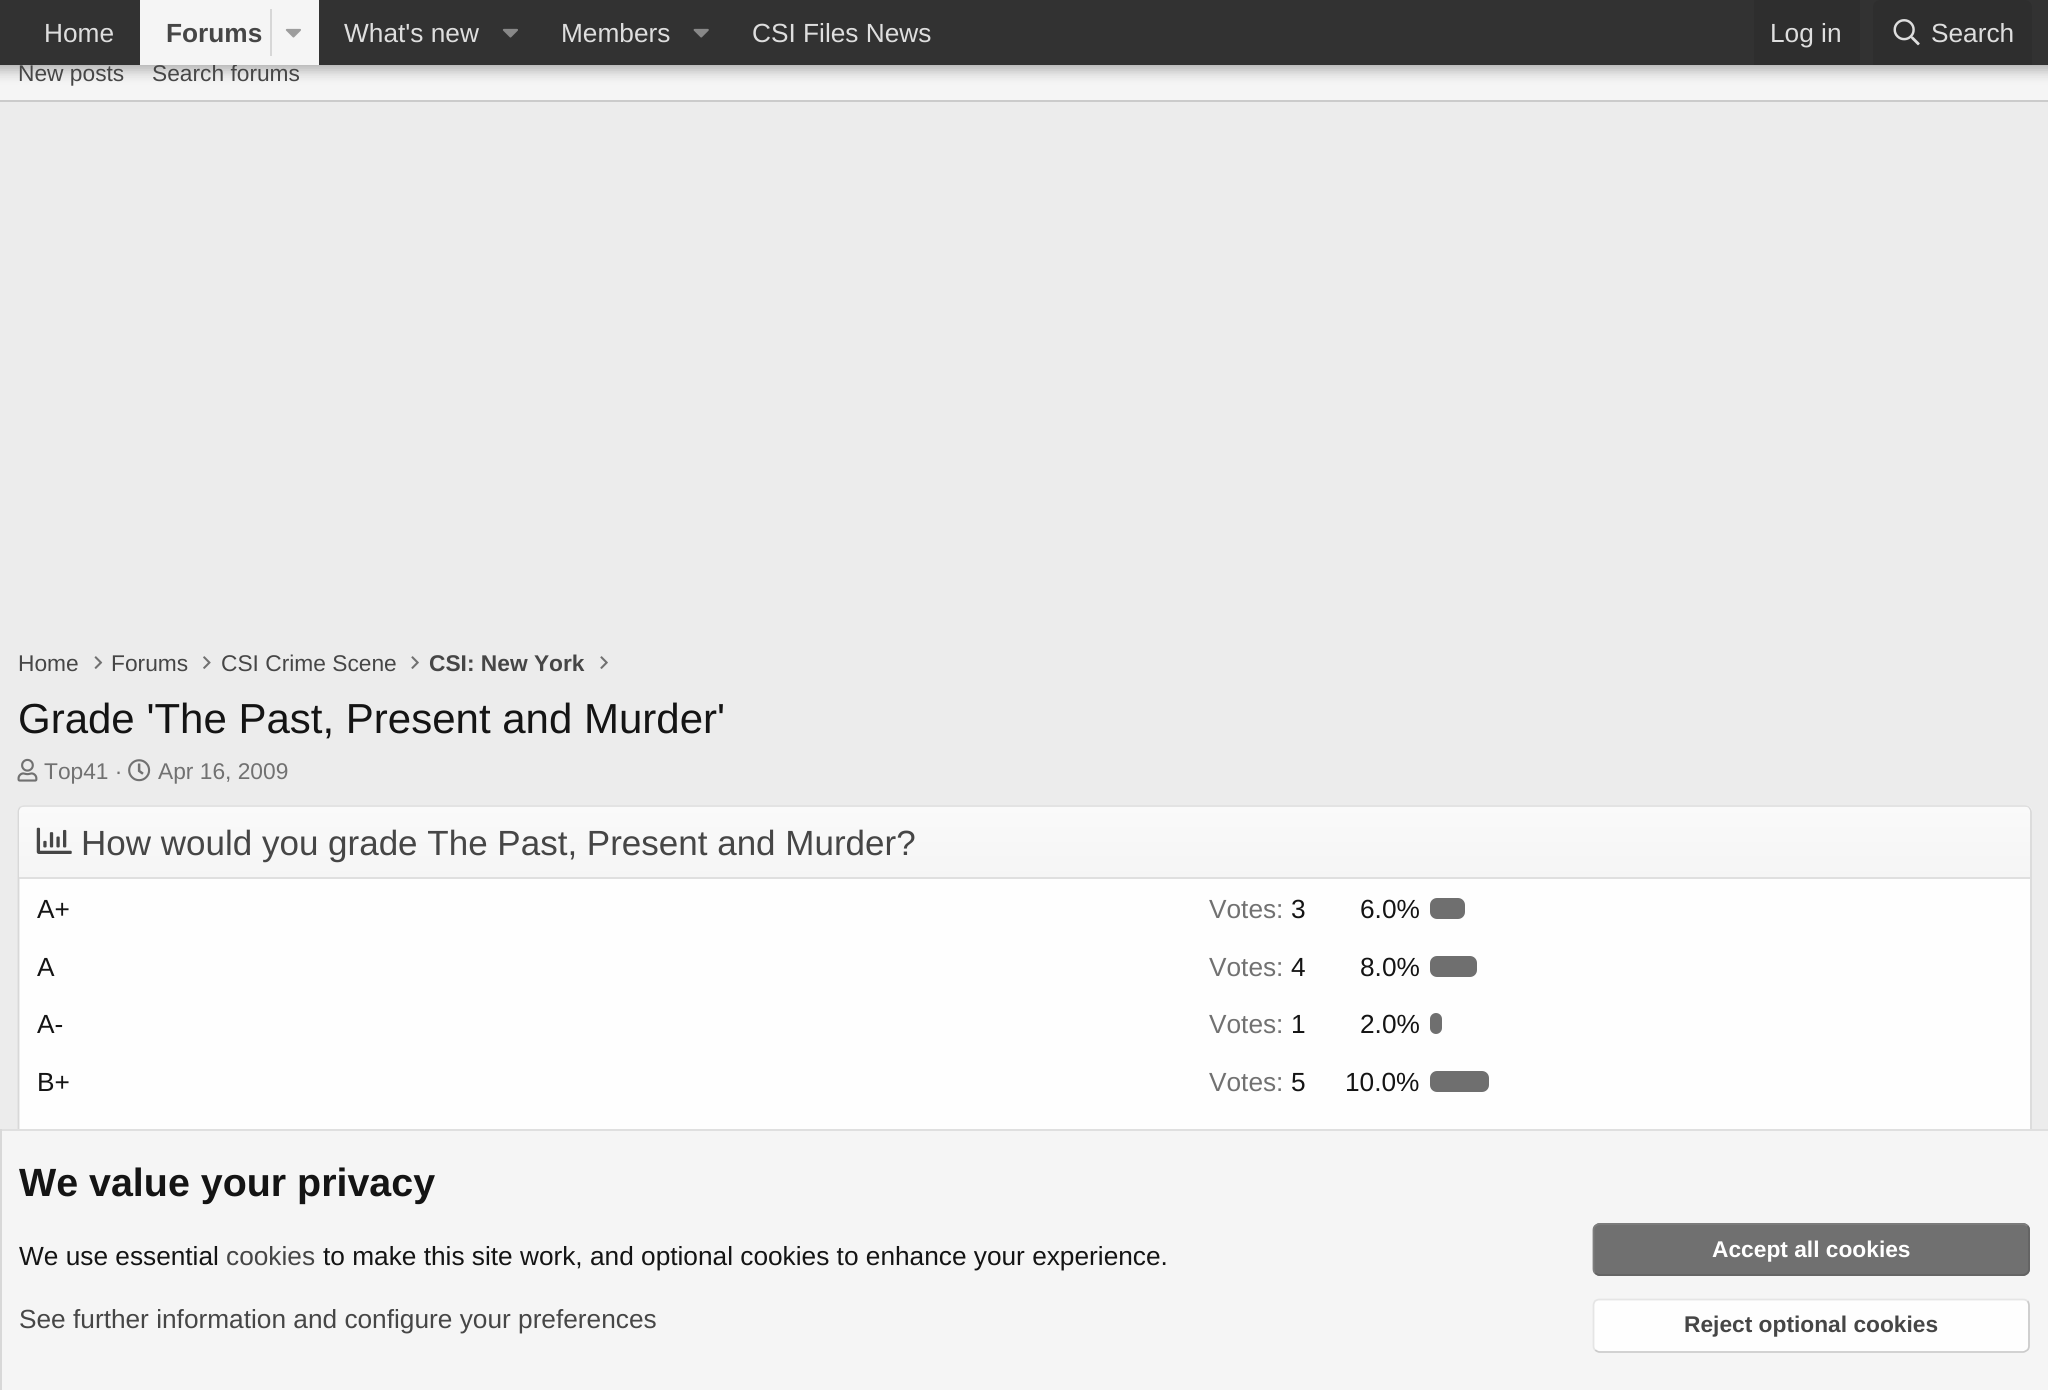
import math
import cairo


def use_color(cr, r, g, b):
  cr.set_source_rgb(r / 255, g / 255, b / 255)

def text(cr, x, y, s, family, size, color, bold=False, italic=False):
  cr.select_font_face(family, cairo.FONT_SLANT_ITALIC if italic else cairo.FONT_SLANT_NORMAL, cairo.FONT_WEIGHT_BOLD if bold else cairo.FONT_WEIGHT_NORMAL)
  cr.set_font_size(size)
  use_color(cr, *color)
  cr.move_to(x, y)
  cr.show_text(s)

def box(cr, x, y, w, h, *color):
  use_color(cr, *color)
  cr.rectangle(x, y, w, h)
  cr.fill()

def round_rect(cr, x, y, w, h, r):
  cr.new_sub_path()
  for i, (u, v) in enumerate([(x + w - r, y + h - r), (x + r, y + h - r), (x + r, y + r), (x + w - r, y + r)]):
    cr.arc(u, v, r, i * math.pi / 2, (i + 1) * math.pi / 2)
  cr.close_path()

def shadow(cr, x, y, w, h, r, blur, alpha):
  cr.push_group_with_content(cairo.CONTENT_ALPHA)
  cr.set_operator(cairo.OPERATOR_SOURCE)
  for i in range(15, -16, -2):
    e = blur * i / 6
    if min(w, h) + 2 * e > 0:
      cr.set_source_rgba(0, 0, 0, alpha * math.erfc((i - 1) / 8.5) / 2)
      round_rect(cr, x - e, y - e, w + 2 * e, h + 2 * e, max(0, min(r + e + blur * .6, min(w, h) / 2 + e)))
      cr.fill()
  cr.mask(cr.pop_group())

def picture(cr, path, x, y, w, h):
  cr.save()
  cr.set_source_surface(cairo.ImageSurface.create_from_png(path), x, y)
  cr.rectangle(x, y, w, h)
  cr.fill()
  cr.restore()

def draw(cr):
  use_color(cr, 236, 236, 236)
  cr.paint()
  box(cr, 0, 65, 2048, 35, 245, 245, 245)
  use_color(cr, 0, 0, 0)
  shadow(cr, -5, -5, 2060, 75, 0, 7, 0.3)
  box(cr, 0, 100, 2048, 2, 203, 203, 203)
  picture(cr, "img_05.png", 94, 656, 9, 13)
  picture(cr, "img_06.png", 203, 656, 8, 13)
  picture(cr, "img_07.png", 411, 656, 8, 13)
  picture(cr, "img_07.png", 600, 656, 8, 13)
  picture(cr, "img_08.png", 17, 758, 21, 24)
  picture(cr, "img_09.png", 128, 759, 23, 23)
  use_color(cr, 254, 254, 254)
  round_rect(cr, 18, 805, 2014, 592, 7)
  cr.fill()
  cr.new_path()
  cr.move_to(20, 807.5)
  cr.curve_to(21.5, 806.5, 23, 806, 24.5, 806)
  cr.line_to(2025, 806)
  cr.curve_to(2026.5, 806, 2028, 806.5, 2029, 807.5)
  use_color(cr, 223, 223, 223)
  cr.set_line_width(1.8)
  cr.stroke()
  cr.new_path()
  cr.move_to(2029, 807.5)
  cr.curve_to(2030, 809, 2031, 810.5, 2031, 812)
  cr.line_to(2031, 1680)
  cr.curve_to(2031, 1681.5, 2030, 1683, 2029, 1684.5)
  use_color(cr, 216, 216, 216)
  cr.stroke()
  cr.new_path()
  cr.move_to(20, 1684.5)
  cr.curve_to(19, 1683, 18.5, 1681.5, 18.5, 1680)
  cr.line_to(18.5, 812)
  cr.curve_to(18.5, 810.5, 19, 809, 20, 807.5)
  cr.stroke()
  gradient = cairo.LinearGradient(1025, 877, 1025, 807)
  gradient.add_color_stop_rgba(0, 0.961, 0.961, 0.961, 1)
  gradient.add_color_stop_rgba(1, 0.98, 0.98, 0.98, 1)
  cr.set_source(gradient)
  cr.new_path()
  cr.move_to(24, 807)
  cr.line_to(2025, 807)
  cr.curve_to(2028, 807, 2030, 809, 2030, 812)
  cr.line_to(2030, 877)
  cr.line_to(19, 877)
  cr.line_to(19, 812)
  cr.curve_to(19, 809, 21, 807, 24, 807)
  cr.close_path()
  cr.fill()
  box(cr, 19, 877, 2011, 2, 223, 223, 223)
  picture(cr, "img_10.png", 36, 827, 36, 27)
  use_color(cr, 111, 111, 111)
  round_rect(cr, 1430, 898, 35, 21, 7)
  cr.fill()
  round_rect(cr, 1430, 956, 47, 21, 7)
  cr.fill()
  round_rect(cr, 1430, 1013, 12, 21, 6)
  cr.fill()
  round_rect(cr, 1430, 1071, 59, 21, 7)
  cr.fill()
  box(cr, 2, 1131, 2046, 259, 245, 245, 245)
  box(cr, 0, 1129, 2048, 2, 223, 223, 223)
  box(cr, 0, 1129, 2, 261, 216, 216, 216)
  use_color(cr, 112, 112, 112)
  round_rect(cr, 1593, 1223, 437, 53, 7)
  cr.fill()
  cr.new_path()
  cr.move_to(2027.5, 1226)
  cr.curve_to(2028.5, 1227, 2029, 1228.5, 2029, 1230)
  cr.line_to(2029, 1269)
  cr.curve_to(2029, 1270.5, 2028.5, 1272, 2027.5, 1273)
  cr.curve_to(2026, 1274, 2024.5, 1275, 2023, 1275)
  cr.line_to(1599.5, 1275)
  cr.curve_to(1598, 1275, 1596.5, 1274, 1595, 1273)
  use_color(cr, 99, 99, 99)
  cr.stroke()
  cr.new_path()
  cr.move_to(1595, 1273)
  cr.curve_to(1594, 1272, 1593.5, 1270.5, 1593.5, 1269)
  cr.line_to(1593.5, 1230)
  cr.curve_to(1593.5, 1228.5, 1594, 1227, 1595, 1226)
  cr.curve_to(1596.5, 1225, 1598, 1224, 1599.5, 1224)
  cr.line_to(2023, 1224)
  cr.curve_to(2024.5, 1224, 2026, 1225, 2027.5, 1226)
  use_color(cr, 125, 125, 125)
  cr.stroke()
  use_color(cr, 254, 254, 254)
  round_rect(cr, 1593, 1299, 437, 54, 7)
  cr.fill()
  cr.new_path()
  cr.move_to(2027.5, 1301)
  cr.curve_to(2028.5, 1302.5, 2029, 1304, 2029, 1305.5)
  cr.line_to(2029, 1346)
  cr.curve_to(2029, 1347.5, 2028.5, 1349, 2027.5, 1350)
  cr.curve_to(2026, 1351, 2024.5, 1352, 2023, 1352)
  cr.line_to(1599.5, 1352)
  cr.curve_to(1598, 1352, 1596.5, 1351, 1595, 1350)
  use_color(cr, 203, 203, 203)
  cr.stroke()
  cr.new_path()
  cr.move_to(1595, 1350)
  cr.curve_to(1594, 1349, 1593.5, 1347.5, 1593.5, 1346)
  cr.line_to(1593.5, 1305.5)
  cr.curve_to(1593.5, 1304, 1594, 1302.5, 1595, 1301)
  cr.curve_to(1596.5, 1300, 1598, 1299.5, 1599.5, 1299.5)
  cr.line_to(2023, 1299.5)
  cr.curve_to(2024.5, 1299.5, 2026, 1300, 2027.5, 1301)
  use_color(cr, 229, 229, 229)
  cr.stroke()
  text(cr, 18, 81, "New posts", "Liberation Sans", 22.75, (70, 70, 70))
  text(cr, 152, 81, "Search forums", "Liberation Sans", 22.75, (70, 70, 70))
  box(cr, 0, 0, 2048, 65, 50, 50, 50)
  picture(cr, "img_03.png", 693, 28, 16, 10)
  picture(cr, "img_02.png", 502, 28, 16, 10)
  box(cr, 140, 0, 179, 65, 245, 245, 245)
  box(cr, 270, 9, 2, 47, 215, 215, 215)
  picture(cr, "img_01.png", 285, 28, 16, 10)
  text(cr, 752, 42, "CSI Files News", "Liberation Sans", 26.25, (222, 222, 222))
  text(cr, 561, 42, "Members", "Liberation Sans", 26.25, (222, 222, 222))
  text(cr, 344, 42, "What's new", "Liberation Sans", 26.25, (222, 222, 222))
  text(cr, 166, 42, "Forums", "Liberation Sans", 26.25, (70, 70, 70), bold=True)
  text(cr, 44, 42, "Home", "Liberation Sans", 26.25, (222, 222, 222))
  use_color(cr, 46, 46, 46)
  cr.new_path()
  cr.move_to(1880, 0)
  cr.line_to(2025, 0)
  cr.curve_to(2029, 0, 2032, 3, 2032, 7)
  cr.line_to(2032, 65)
  cr.line_to(1873, 65)
  cr.line_to(1873, 7)
  cr.curve_to(1873, 3, 1876, 0, 1880, 0)
  cr.close_path()
  cr.fill()
  text(cr, 1931, 42, "Search", "Liberation Sans", 26.25, (222, 222, 222))
  picture(cr, "img_04.png", 1893, 19, 27, 27)
  box(cr, 1754, 0, 106, 65, 46, 46, 46)
  text(cr, 1770, 42, "Log in", "Liberation Sans", 26.25, (222, 222, 222))
  text(cr, 18, 671, "Home", "Liberation Sans", 22.75, (70, 70, 70))
  text(cr, 111, 671, "Forums", "Liberation Sans", 22.75, (70, 70, 70))
  text(cr, 221, 671, "CSI Crime Scene", "Liberation Sans", 22.75, (70, 70, 70))
  text(cr, 429, 671, "CSI: New York", "Liberation Sans", 22.75, (70, 70, 70), bold=True)
  text(cr, 18, 733, "Grade 'The Past, Present and Murder'", "Liberation Sans", 42, (20, 20, 20))
  text(cr, 44, 779, "Top41 ·", "Liberation Sans", 22.75, (113, 113, 113))
  text(cr, 158, 779, "Apr 16, 2009", "Liberation Sans", 22.75, (113, 113, 113))
  text(cr, 81, 855, "How would you grade The Past, Present and Murder?", "Liberation Sans", 35, (70, 70, 70))
  text(cr, 37, 918, "A+", "Liberation Sans", 26.25, (20, 20, 20))
  text(cr, 1209, 918, "Votes:", "Liberation Sans", 26.25, (113, 113, 113))
  text(cr, 1291, 918, "3", "Liberation Sans", 26.25, (20, 20, 20))
  text(cr, 1360, 918, "6.0%", "Liberation Sans", 26.25, (20, 20, 20))
  text(cr, 37, 976, "A", "Liberation Sans", 26.25, (20, 20, 20))
  text(cr, 1209, 976, "Votes:", "Liberation Sans", 26.25, (113, 113, 113))
  text(cr, 1291, 976, "4", "Liberation Sans", 26.25, (20, 20, 20))
  text(cr, 1360, 976, "8.0%", "Liberation Sans", 26.25, (20, 20, 20))
  text(cr, 37, 1033, "A-", "Liberation Sans", 26.25, (20, 20, 20))
  text(cr, 1209, 1033, "Votes:", "Liberation Sans", 26.25, (113, 113, 113))
  text(cr, 1291, 1033, "1", "Liberation Sans", 26.25, (20, 20, 20))
  text(cr, 1360, 1033, "2.0%", "Liberation Sans", 26.25, (20, 20, 20))
  text(cr, 37, 1091, "B+", "Liberation Sans", 26.25, (20, 20, 20))
  text(cr, 1209, 1091, "Votes:", "Liberation Sans", 26.25, (113, 113, 113))
  text(cr, 1291, 1091, "5", "Liberation Sans", 26.25, (20, 20, 20))
  text(cr, 1345, 1091, "10.0%", "Liberation Sans", 26.25, (20, 20, 20))
  text(cr, 19, 1196, "We value your privacy", "Liberation Sans", 39.4, (20, 20, 20), bold=True)
  text(cr, 19, 1265, "We use essential", "Liberation Sans", 26.25, (20, 20, 20))
  text(cr, 226, 1265, "cookies", "Liberation Sans", 26.25, (70, 70, 70))
  text(cr, 323, 1265, "to make this site work, and optional cookies to enhance your experience.", "Liberation Sans", 26.25, (20, 20, 20))
  text(cr, 19, 1328, "See further information and configure your preferences", "Liberation Sans", 26.25, (70, 70, 70))
  text(cr, 1712, 1257, "Accept all cookies", "Liberation Sans", 22.75, (255, 255, 255), bold=True)
  text(cr, 1684, 1332, "Reject optional cookies", "Liberation Sans", 22.75, (70, 70, 70), bold=True)


surface = cairo.ImageSurface(cairo.FORMAT_RGB24, 2048, 1390)
cr = cairo.Context(surface)
options = cairo.FontOptions()
options.set_hint_metrics(cairo.HINT_METRICS_OFF)
options.set_hint_style(cairo.HINT_STYLE_NONE)
cr.set_font_options(options)
cr.set_miter_limit(4)
draw(cr)
surface.write_to_png("out.png")
